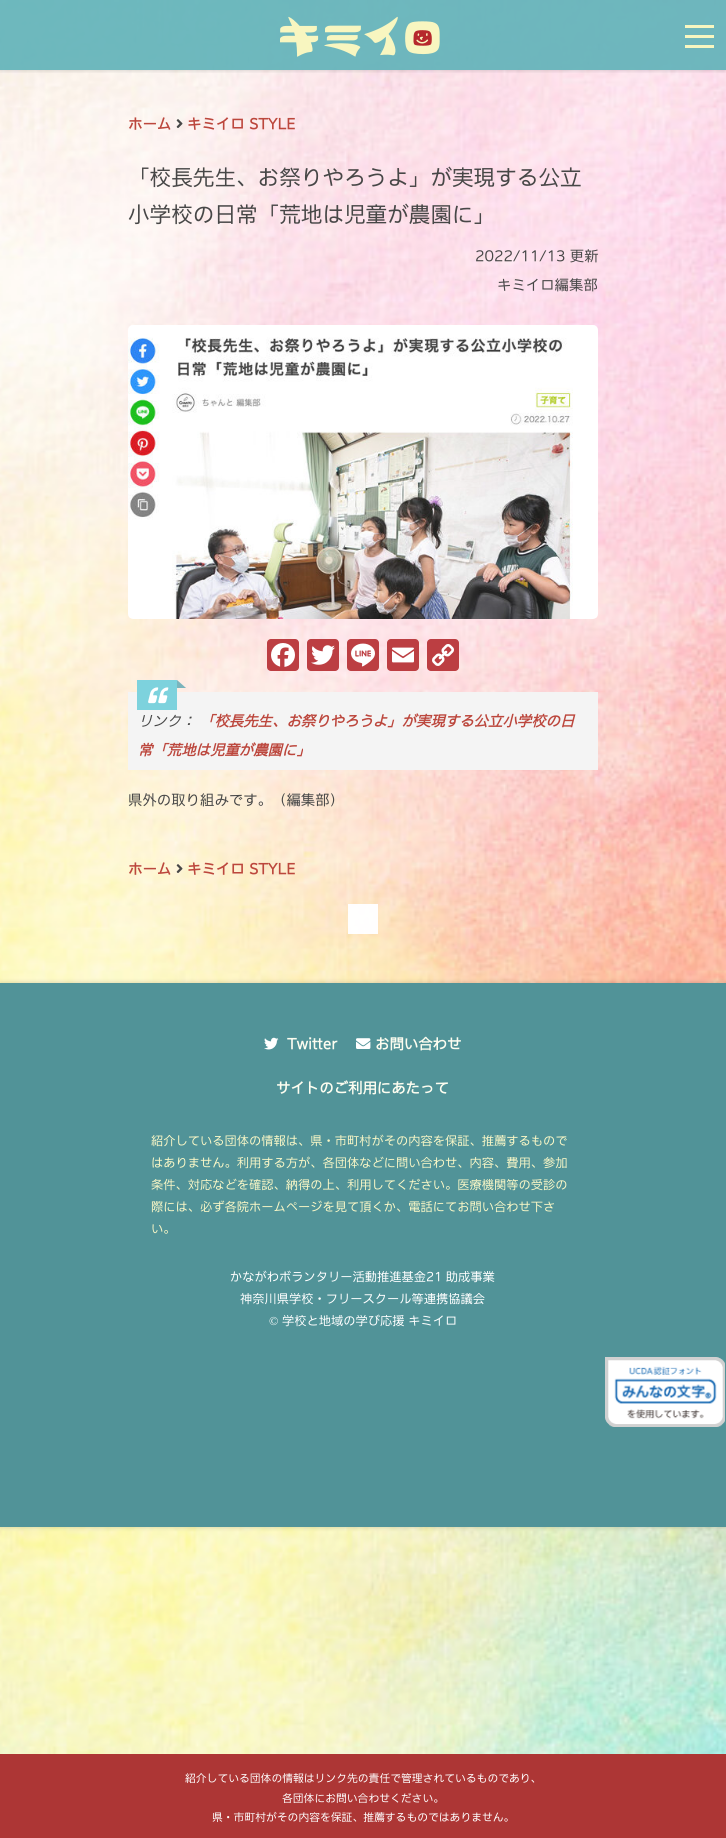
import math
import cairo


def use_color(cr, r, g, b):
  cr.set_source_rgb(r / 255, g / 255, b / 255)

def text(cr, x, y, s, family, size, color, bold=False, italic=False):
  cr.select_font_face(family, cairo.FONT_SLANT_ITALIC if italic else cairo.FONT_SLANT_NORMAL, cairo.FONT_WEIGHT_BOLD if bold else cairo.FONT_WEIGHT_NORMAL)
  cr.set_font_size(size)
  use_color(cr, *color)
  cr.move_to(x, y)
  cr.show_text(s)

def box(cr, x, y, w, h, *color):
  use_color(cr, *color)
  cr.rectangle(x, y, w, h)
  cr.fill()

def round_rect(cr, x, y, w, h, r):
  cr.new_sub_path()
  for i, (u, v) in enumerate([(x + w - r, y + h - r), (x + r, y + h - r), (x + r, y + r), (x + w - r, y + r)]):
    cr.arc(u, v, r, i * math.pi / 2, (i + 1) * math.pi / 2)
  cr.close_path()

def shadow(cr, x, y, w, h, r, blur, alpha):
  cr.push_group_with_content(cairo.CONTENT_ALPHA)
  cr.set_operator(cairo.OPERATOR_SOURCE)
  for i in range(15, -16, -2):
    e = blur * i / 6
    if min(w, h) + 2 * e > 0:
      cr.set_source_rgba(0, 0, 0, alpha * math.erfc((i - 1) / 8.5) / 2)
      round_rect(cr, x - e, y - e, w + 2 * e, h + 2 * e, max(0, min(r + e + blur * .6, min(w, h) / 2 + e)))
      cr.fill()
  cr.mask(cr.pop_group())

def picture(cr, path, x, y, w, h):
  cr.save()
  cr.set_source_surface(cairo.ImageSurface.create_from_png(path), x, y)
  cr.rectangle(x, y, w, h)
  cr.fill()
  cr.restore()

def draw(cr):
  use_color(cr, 255, 255, 255)
  cr.paint()
  picture(cr, "img_01.png", 0, 0, 726, 1754)
  cr.save()
  cr.rectangle(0, 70, 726, 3)
  cr.clip()
  use_color(cr, 0, 0, 0)
  shadow(cr, 0, 0, 726, 70, 0, 2.5, 0.2)
  cr.restore()
  cr.set_source_rgba(0.369, 0.698, 0.722, 0.9)
  cr.rectangle(0, 0, 726, 70)
  cr.fill()
  picture(cr, "img_02.png", 280, 16, 160, 41)
  box(cr, 685, 35, 29, 3, 248, 246, 192)
  box(cr, 685, 25, 29, 3, 248, 246, 192)
  box(cr, 685, 45, 29, 3, 248, 246, 192)
  picture(cr, "img_03.png", 176, 119, 7, 9)
  picture(cr, "img_04.png", 128, 325, 470, 294)
  use_color(cr, 188, 62, 66)
  round_rect(cr, 267, 639, 32, 32, 4)
  cr.fill()
  picture(cr, "img_05.png", 271, 643, 24, 24)
  round_rect(cr, 307, 639, 32, 32, 4)
  cr.fill()
  picture(cr, "img_06.png", 311, 645, 24, 20)
  round_rect(cr, 347, 639, 32, 32, 4)
  cr.fill()
  picture(cr, "img_07.png", 351, 643, 24, 24)
  round_rect(cr, 387, 639, 32, 32, 4)
  cr.fill()
  picture(cr, "img_08.png", 392, 647, 22, 16)
  round_rect(cr, 427, 639, 32, 32, 4)
  cr.fill()
  picture(cr, "img_09.png", 432, 644, 22, 22)
  box(cr, 128, 692, 470, 78, 244, 244, 244)
  box(cr, 137, 680, 40, 30, 125, 210, 221)
  picture(cr, "img_10.png", 148, 687, 21, 17)
  use_color(cr, 123, 180, 188)
  cr.new_path()
  cr.move_to(186, 688)
  cr.line_to(177, 688)
  cr.line_to(177, 680)
  cr.close_path()
  cr.fill()
  picture(cr, "img_11.png", 176, 864, 7, 9)
  box(cr, 0, 1754, 726, 84, 173, 54, 53)
  use_color(cr, 26, 26, 26)
  shadow(cr, 0, 983, 726, 544, 0, 2.5, 0.2)
  box(cr, 0, 983, 726, 544, 81, 147, 152)
  picture(cr, "img_12.png", 264, 1037, 15, 13)
  picture(cr, "img_13.png", 356, 1038, 15, 11)
  picture(cr, "img_14.png", 605, 1357, 120, 70)
  cr.set_source_rgba(1, 1, 1, 0.98)
  cr.rectangle(348, 904, 30, 30)
  cr.fill()
  text(cr, 128, 129, "ホーム", "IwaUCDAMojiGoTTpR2", 14.4, (188, 71, 61), bold=True)
  text(cr, 187, 129, "キミイロ STYLE", "IwaUCDAMojiGoTTpR2", 14.4, (188, 71, 61), bold=True)
  text(cr, 128, 185, "「校長先生、お祭りやろうよ」が実現する公立", "IwaUCDAMojiGoTTpR2", 21.6, (71, 71, 71))
  text(cr, 128, 222, "小学校の日常「荒地は児童が農園に」", "IwaUCDAMojiGoTTpR2", 21.6, (71, 71, 71))
  text(cr, 475, 261, "2022/11/13 更新", "IwaUCDAMojiGoTTpR2", 14.4, (71, 71, 71))
  text(cr, 497, 290, "キミイロ編集部", "IwaUCDAMojiGoTTpR2", 14.4, (71, 71, 71))
  text(cr, 138, 726, "リンク：", "IwaUCDAMojiGoTTpR2", 14.4, (71, 71, 71), italic=True)
  text(cr, 200, 726, "「校長先生、お祭りやろうよ」が実現する公立小学校の日", "IwaUCDAMojiGoTTpR2", 14.4, (188, 71, 61), bold=True, italic=True)
  text(cr, 138, 755, "常「荒地は児童が農園に」", "IwaUCDAMojiGoTTpR2", 14.4, (188, 71, 61), bold=True, italic=True)
  text(cr, 128, 805, "県外の取り組みです。（編集部）", "IwaUCDAMojiGoTTpR2", 14.4, (71, 71, 71))
  text(cr, 128, 874, "ホーム", "IwaUCDAMojiGoTTpR2", 14.4, (188, 71, 61), bold=True)
  text(cr, 187, 874, "キミイロ STYLE", "IwaUCDAMojiGoTTpR2", 14.4, (188, 71, 61), bold=True)
  text(cr, 185, 1782, "紹介している団体の情報はリンク先の責任で管理されているものであり、", "IwaUCDAMojiGoTTpR2", 10.8, (255, 255, 255))
  text(cr, 282, 1802, "各団体にお問い合わせください。", "IwaUCDAMojiGoTTpR2", 10.8, (255, 255, 255))
  text(cr, 212, 1821, "県・市町村がその内容を保証、推薦するものではありません。", "IwaUCDAMojiGoTTpR2", 10.8, (255, 255, 255))
  text(cr, 287, 1049, "Twitter", "IwaUCDAMojiGoTTpR2", 14.4, (253, 253, 240), bold=True)
  text(cr, 375, 1049, "お問い合わせ", "IwaUCDAMojiGoTTpR2", 14.4, (253, 253, 240), bold=True)
  text(cr, 276, 1093, "サイトのご利用にあたって", "IwaUCDAMojiGoTTpR2", 14.4, (253, 253, 240), bold=True)
  text(cr, 151, 1145, "紹介している団体の情報は、県・市町村がその内容を保証、推薦するもので", "IwaUCDAMojiGoTTpR2", 12.25, (249, 247, 198))
  text(cr, 151, 1167, "はありません。利用する方が、各団体などに問い合わせ、内容、費用、参加", "IwaUCDAMojiGoTTpR2", 12.25, (249, 247, 198))
  text(cr, 151, 1189, "条件、対応などを確認、納得の上、利用してください。医療機関等の受診の", "IwaUCDAMojiGoTTpR2", 12.25, (249, 247, 198))
  text(cr, 151, 1211, "際には、必ず各院ホームページを見て頂くか、電話にてお問い合わせ下さ", "IwaUCDAMojiGoTTpR2", 12.25, (249, 247, 198))
  text(cr, 151, 1233, "い。", "IwaUCDAMojiGoTTpR2", 12.25, (249, 247, 198))
  text(cr, 230, 1281, "かながわボランタリー活動推進基金21 助成事業", "IwaUCDAMojiGoTTpR2", 12.25, (255, 255, 255))
  text(cr, 240, 1303, "神奈川県学校・フリースクール等連携協議会", "IwaUCDAMojiGoTTpR2", 12.25, (255, 255, 255))
  text(cr, 269, 1325, "©", "Liberation Serif", 12.25, (255, 255, 255))
  text(cr, 282, 1325, "学校と地域の学び応援 キミイロ", "IwaUCDAMojiGoTTpR2", 12.25, (255, 255, 255))


surface = cairo.ImageSurface(cairo.FORMAT_RGB24, 726, 1838)
cr = cairo.Context(surface)
options = cairo.FontOptions()
options.set_hint_metrics(cairo.HINT_METRICS_OFF)
options.set_hint_style(cairo.HINT_STYLE_NONE)
cr.set_font_options(options)
cr.set_miter_limit(4)
draw(cr)
surface.write_to_png("out.png")
